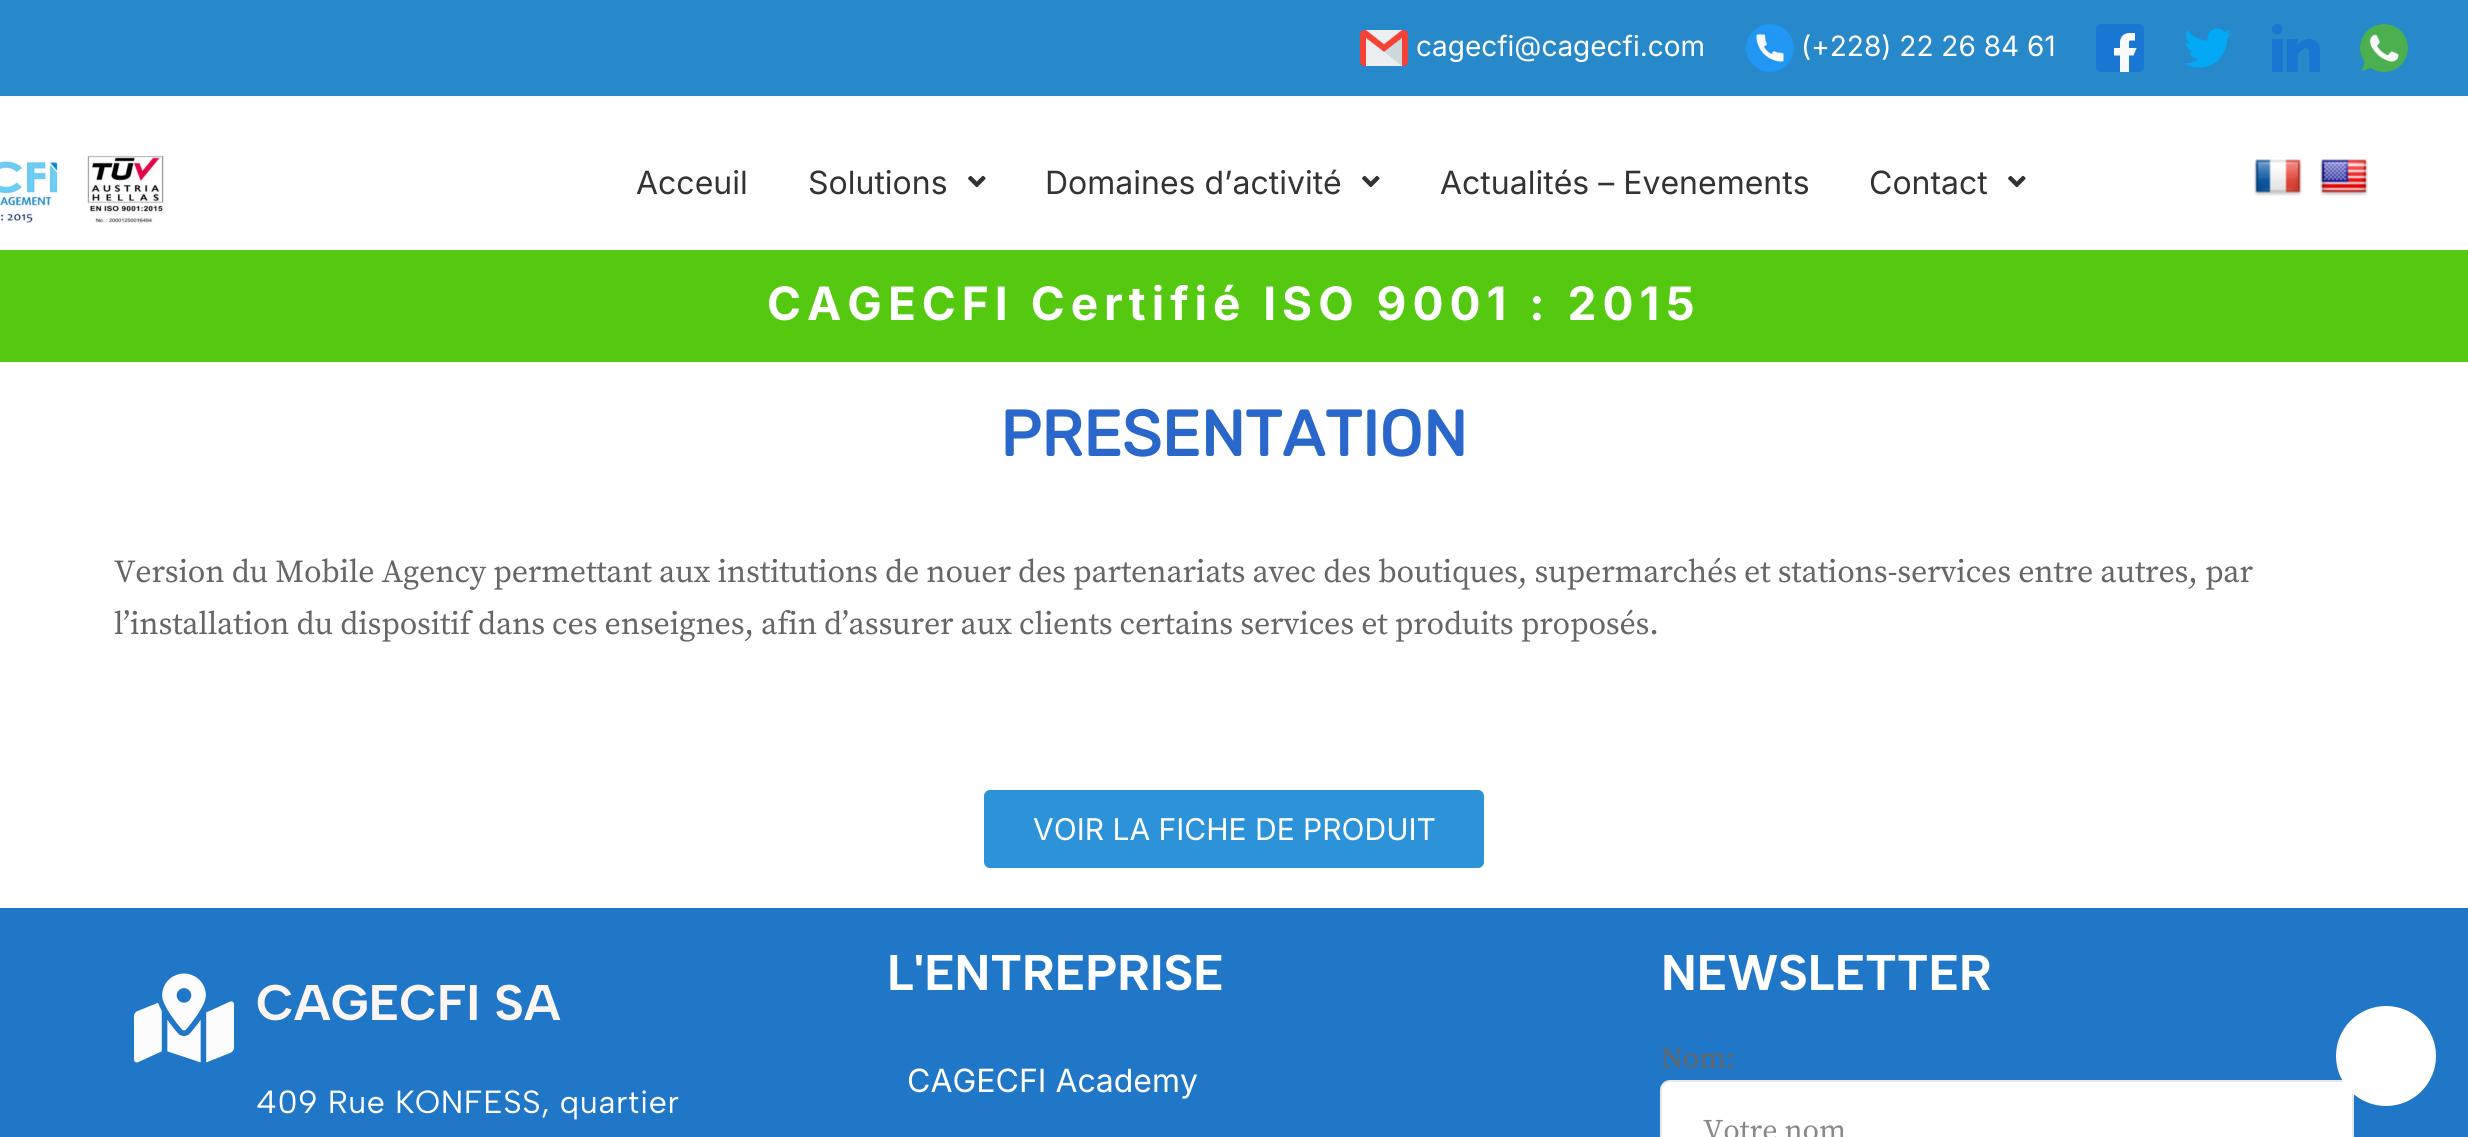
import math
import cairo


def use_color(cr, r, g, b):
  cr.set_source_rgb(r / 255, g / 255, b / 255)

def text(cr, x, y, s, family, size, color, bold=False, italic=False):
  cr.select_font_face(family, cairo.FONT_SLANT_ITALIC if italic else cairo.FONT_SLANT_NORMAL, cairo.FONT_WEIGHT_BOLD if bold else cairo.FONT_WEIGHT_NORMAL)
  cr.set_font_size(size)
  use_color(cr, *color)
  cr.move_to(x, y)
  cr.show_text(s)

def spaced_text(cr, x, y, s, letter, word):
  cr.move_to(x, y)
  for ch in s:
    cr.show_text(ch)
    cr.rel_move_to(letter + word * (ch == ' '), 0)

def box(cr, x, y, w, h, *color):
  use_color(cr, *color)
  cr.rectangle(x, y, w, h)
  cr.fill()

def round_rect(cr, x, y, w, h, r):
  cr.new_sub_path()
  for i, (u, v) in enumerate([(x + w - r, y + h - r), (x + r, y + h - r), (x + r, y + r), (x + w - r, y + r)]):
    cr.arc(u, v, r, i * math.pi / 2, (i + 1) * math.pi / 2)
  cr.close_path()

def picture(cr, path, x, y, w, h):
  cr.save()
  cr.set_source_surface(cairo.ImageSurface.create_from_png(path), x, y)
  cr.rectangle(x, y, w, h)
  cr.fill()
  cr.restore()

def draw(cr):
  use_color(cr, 255, 255, 255)
  cr.paint()
  box(cr, 0, 0, 2468, 96, 39, 136, 202)
  picture(cr, "img_01.png", 1360, 30, 48, 36)
  picture(cr, "img_02.png", 1746, 24, 48, 48)
  picture(cr, "img_03.png", 2096, 24, 48, 48)
  picture(cr, "img_04.png", 2184, 28, 48, 40)
  picture(cr, "img_05.png", 2272, 24, 48, 48)
  picture(cr, "img_06.png", 2360, 24, 48, 48)
  picture(cr, "img_07.png", 0, 155, 165, 69)
  picture(cr, "img_08.png", 968, 175, 18, 13)
  picture(cr, "img_08.png", 1362, 175, 18, 13)
  picture(cr, "img_08.png", 2008, 175, 18, 13)
  picture(cr, "img_09.png", 2254, 159, 48, 37)
  picture(cr, "img_10.png", 2320, 159, 48, 37)
  box(cr, 0, 250, 2468, 112, 84, 201, 16)
  use_color(cr, 45, 147, 216)
  round_rect(cr, 984, 790, 500, 78, 6)
  cr.fill()
  box(cr, 0, 908, 2468, 229, 33, 119, 199)
  picture(cr, "img_11.png", 134, 973, 100, 90)
  use_color(cr, 255, 255, 255)
  round_rect(cr, 1661, 1081, 692, 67, 9)
  cr.fill_preserve()
  use_color(cr, 231, 231, 231)
  cr.stroke()
  use_color(cr, 255, 255, 255)
  cr.arc(2386, 1056, 50, 0, 2 * math.pi)
  cr.fill()
  text(cr, 1416, 56, "cagecfi@cagecfi.com", "Inter", 28, (255, 255, 255))
  text(cr, 1801, 56, "(+228) 22 26 84 61", "Inter", 28, (255, 255, 255))
  text(cr, 636, 194, "Acceuil", "Inter", 32, (51, 51, 51))
  text(cr, 808, 194, "Solutions", "Inter", 32, (51, 51, 51))
  text(cr, 1045, 194, "Domaines d’activité", "Inter", 32, (51, 51, 51))
  text(cr, 1440, 194, "Actualités – Evenements", "Inter", 32, (51, 51, 51))
  text(cr, 1869, 194, "Contact", "Inter", 32, (51, 51, 51))
  cr.select_font_face("Inter", cairo.FONT_SLANT_NORMAL, cairo.FONT_WEIGHT_BOLD)
  cr.set_font_size(46)
  use_color(cr, 255, 255, 255)
  spaced_text(cr, 767, 320, "CAGECFI Certifié ISO 9001 : 2015", 6, 0)
  text(cr, 1000, 456, "PRESENTATION", "Rubik", 64, (41, 103, 202), bold=True)
  cr.select_font_face("Source Serif Pro")
  cr.set_font_size(32)
  use_color(cr, 102, 102, 102)
  spaced_text(cr, 114, 582, "Version du Mobile Agency permettant aux institutions de nouer des partenariats avec des boutiques, supermarchés et stations-services entre autres, par", -0.2, 0)
  spaced_text(cr, 114, 634, "l’installation du dispositif dans ces enseignes, afin d’assurer aux clients certains services et produits proposés.", -0.2, 0)
  text(cr, 1033, 840, "VOIR LA FICHE DE PRODUIT", "Inter", 30, (255, 255, 255))
  text(cr, 256, 1020, "CAGECFI SA", "Albert Sans", 50, (253, 244, 244), bold=True)
  cr.select_font_face("Albert Sans")
  cr.set_font_size(32)
  use_color(cr, 255, 255, 255)
  spaced_text(cr, 256, 1113, "409 Rue KONFESS, quartier", 0.6, 0)
  text(cr, 887, 990, "L'ENTREPRISE", "Albert Sans", 50, (255, 255, 255), bold=True)
  text(cr, 907, 1092, "CAGECFI Academy", "Inter", 32, (255, 255, 255))
  text(cr, 1661, 990, "NEWSLETTER", "Albert Sans", 50, (255, 255, 255), bold=True)
  cr.select_font_face("Source Serif Pro")
  cr.set_font_size(30)
  use_color(cr, 102, 102, 102)
  spaced_text(cr, 1661, 1068, "Nom:", -0.2, 0)
  text(cr, 1703, 1140, "Votre nom", "Source Serif Pro", 30, (136, 136, 136))


surface = cairo.ImageSurface(cairo.FORMAT_RGB24, 2468, 1137)
cr = cairo.Context(surface)
options = cairo.FontOptions()
options.set_hint_metrics(cairo.HINT_METRICS_OFF)
options.set_hint_style(cairo.HINT_STYLE_NONE)
cr.set_font_options(options)
cr.set_miter_limit(4)
draw(cr)
surface.write_to_png("out.png")
